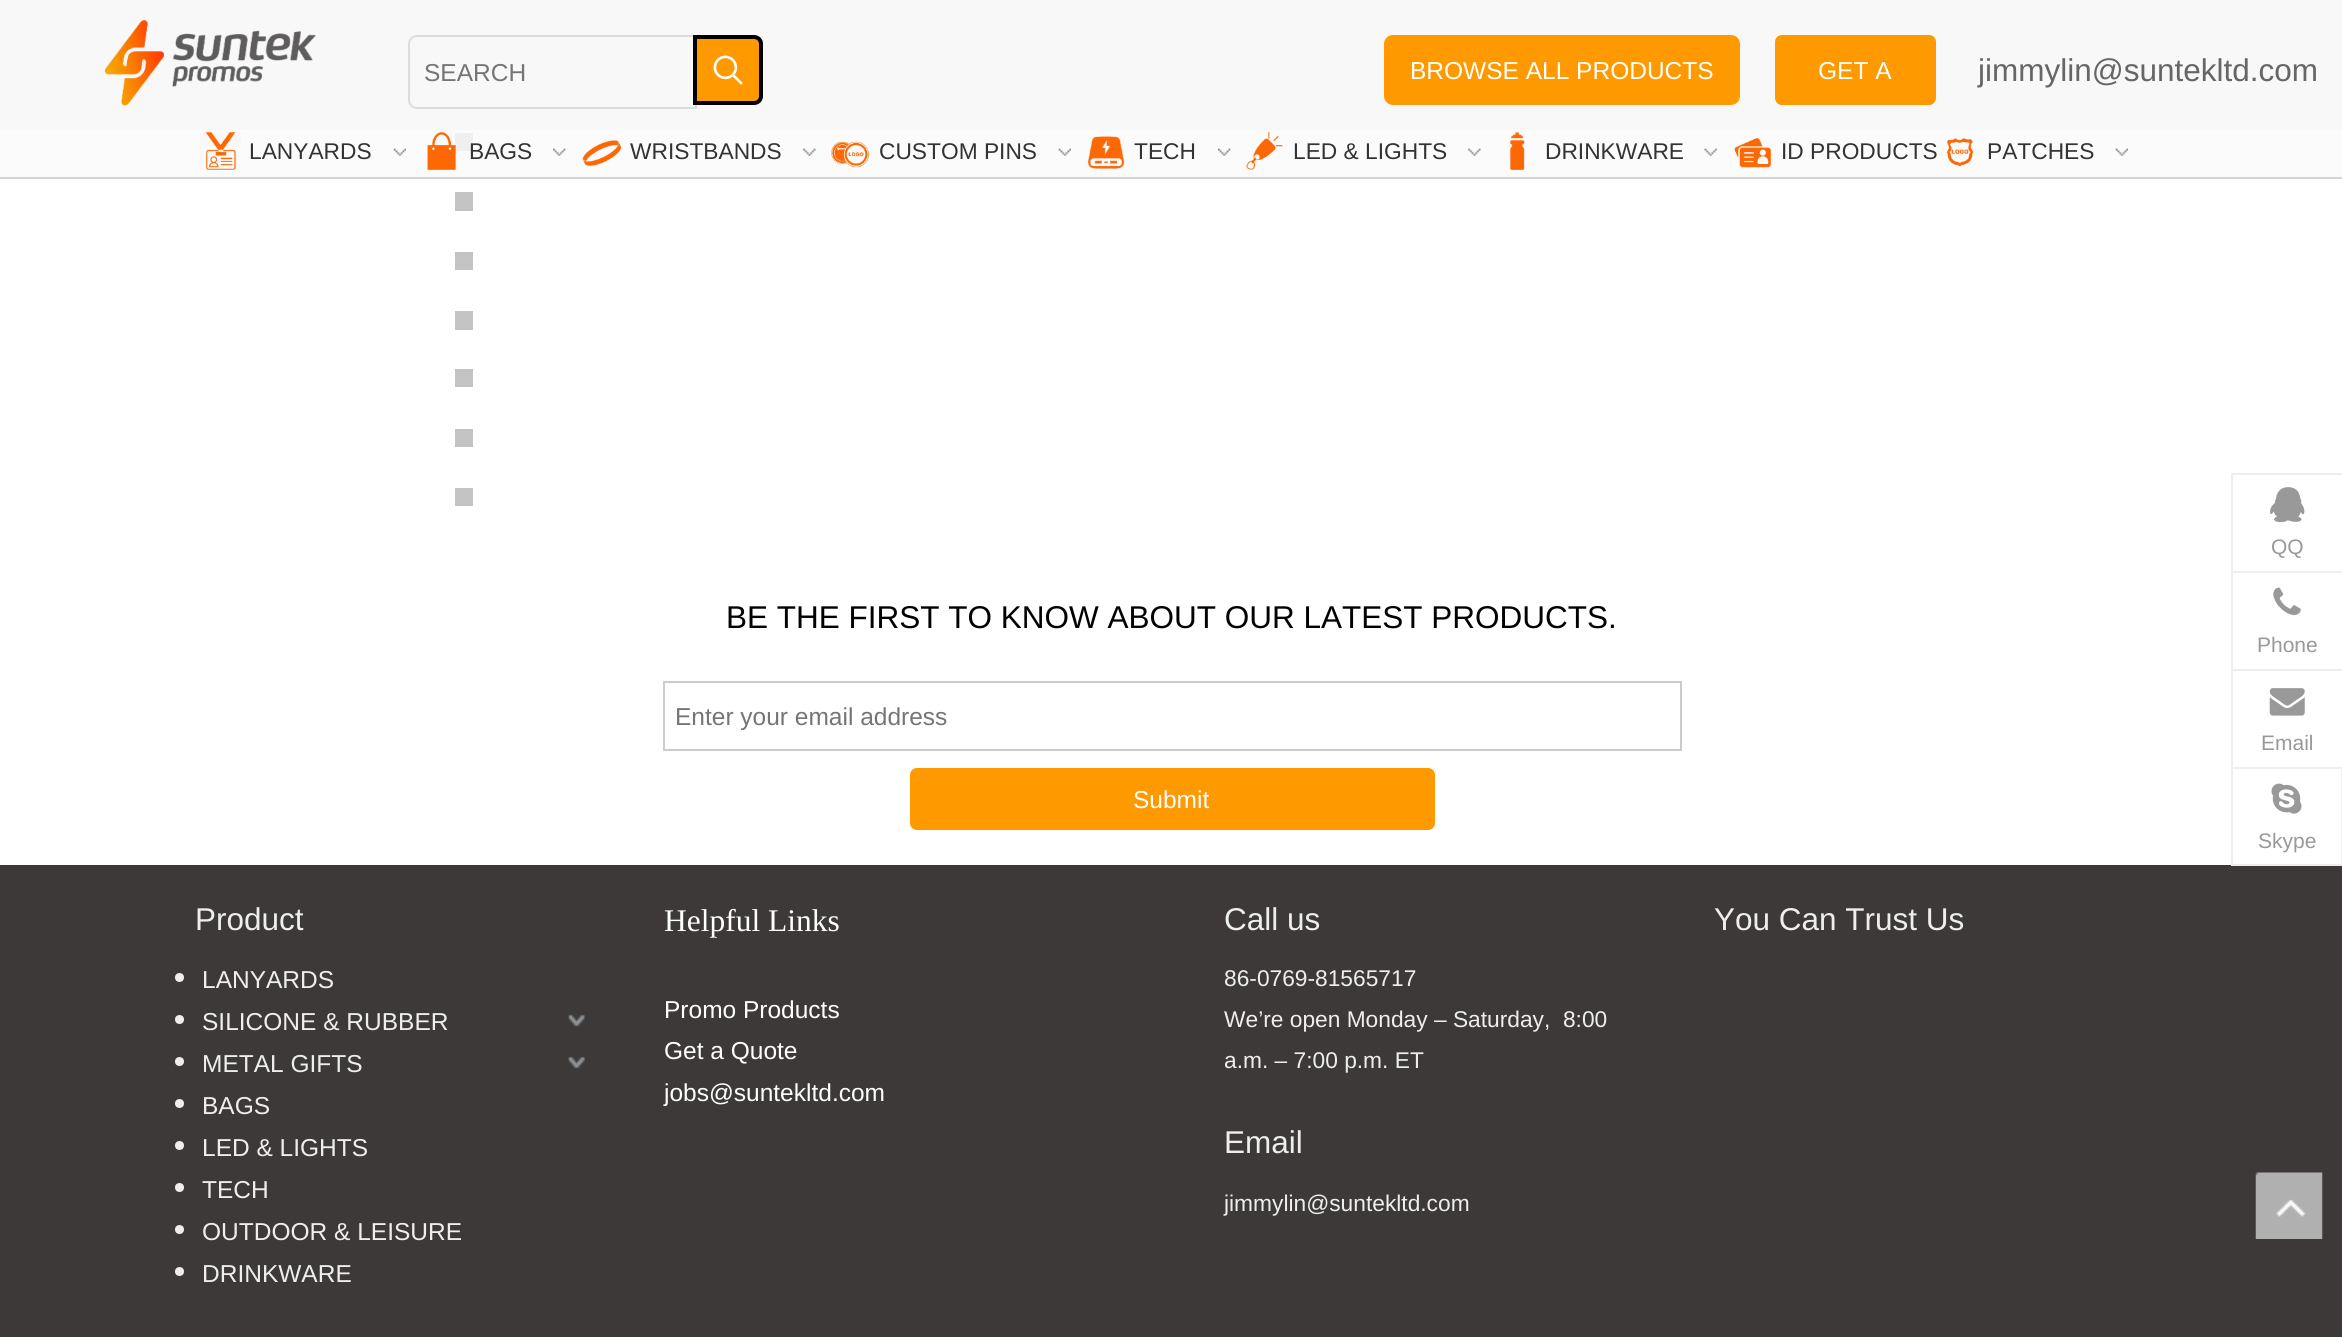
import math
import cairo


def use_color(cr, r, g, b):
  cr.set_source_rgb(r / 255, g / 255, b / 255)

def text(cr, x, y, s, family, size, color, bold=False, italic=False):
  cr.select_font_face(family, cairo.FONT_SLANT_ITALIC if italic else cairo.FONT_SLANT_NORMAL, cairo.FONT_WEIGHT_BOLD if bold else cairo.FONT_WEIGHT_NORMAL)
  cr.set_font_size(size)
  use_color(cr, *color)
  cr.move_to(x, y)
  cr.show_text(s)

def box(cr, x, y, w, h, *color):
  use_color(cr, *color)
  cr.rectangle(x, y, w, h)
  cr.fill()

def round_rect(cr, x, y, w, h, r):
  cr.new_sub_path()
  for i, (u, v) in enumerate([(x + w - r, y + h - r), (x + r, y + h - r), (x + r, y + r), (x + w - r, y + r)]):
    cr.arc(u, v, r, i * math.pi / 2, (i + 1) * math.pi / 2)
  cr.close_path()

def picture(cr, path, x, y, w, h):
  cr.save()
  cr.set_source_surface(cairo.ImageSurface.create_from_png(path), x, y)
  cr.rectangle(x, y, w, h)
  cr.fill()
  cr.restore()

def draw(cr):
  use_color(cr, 255, 255, 255)
  cr.paint()
  box(cr, 0, 130, 2342, 47, 251, 251, 251)
  box(cr, 0, 0, 2342, 130, 248, 248, 248)
  picture(cr, "img_01.png", 104, 20, 212, 86)
  cr.new_path()
  cr.move_to(417, 36)
  cr.line_to(696, 36)
  cr.line_to(696, 108)
  cr.line_to(417, 108)
  cr.curve_to(412.5, 108, 409, 104.5, 409, 100)
  cr.line_to(409, 44)
  cr.curve_to(409, 39.5, 412.5, 36, 417, 36)
  cr.close_path()
  use_color(cr, 221, 221, 221)
  cr.stroke()
  use_color(cr, 255, 153, 0)
  cr.new_path()
  cr.move_to(695, 37)
  cr.line_to(754, 37)
  cr.curve_to(758, 37, 761, 40, 761, 44)
  cr.line_to(761, 96)
  cr.curve_to(761, 100, 758, 103, 754, 103)
  cr.line_to(695, 103)
  cr.close_path()
  cr.fill_preserve()
  use_color(cr, 0, 0, 0)
  cr.set_line_width(4)
  cr.stroke()
  picture(cr, "img_02.png", 713, 55, 30, 30)
  use_color(cr, 255, 153, 0)
  round_rect(cr, 1384, 35, 356, 70, 9)
  cr.fill()
  round_rect(cr, 1775, 35, 161, 70, 7)
  cr.fill()
  box(cr, 0, 177, 2342, 2, 212, 212, 212)
  picture(cr, "img_03.png", 200, 132, 41, 40)
  picture(cr, "img_04.png", 393, 148, 13, 8)
  box(cr, 455, 133, 18, 18, 239, 239, 239)
  picture(cr, "img_05.png", 427, 132, 29, 38)
  picture(cr, "img_06.png", 553, 148, 13, 8)
  picture(cr, "img_07.png", 582, 140, 39, 26)
  picture(cr, "img_08.png", 803, 148, 13, 8)
  picture(cr, "img_09.png", 831, 141, 38, 27)
  picture(cr, "img_04.png", 1058, 148, 13, 8)
  picture(cr, "img_10.png", 1087, 136, 38, 33)
  picture(cr, "img_06.png", 1218, 148, 13, 8)
  picture(cr, "img_11.png", 1246, 132, 37, 38)
  picture(cr, "img_08.png", 1468, 148, 13, 8)
  picture(cr, "img_12.png", 1510, 132, 15, 38)
  picture(cr, "img_13.png", 1704, 148, 13, 8)
  picture(cr, "img_14.png", 1734, 138, 38, 30)
  picture(cr, "img_15.png", 1946, 138, 28, 29)
  picture(cr, "img_16.png", 2115, 148, 13, 8)
  box(cr, 455, 192, 18, 19, 195, 195, 195)
  box(cr, 455, 252, 18, 18, 195, 195, 195)
  box(cr, 455, 311, 18, 19, 195, 195, 195)
  box(cr, 455, 369, 18, 18, 195, 195, 195)
  box(cr, 455, 429, 18, 18, 195, 195, 195)
  box(cr, 455, 488, 18, 18, 195, 195, 195)
  box(cr, 0, 865, 2342, 472, 61, 57, 56)
  use_color(cr, 238, 238, 238)
  cr.arc(179.5, 977.5, 4.5, 0, 2 * math.pi)
  cr.fill()
  cr.arc(179.5, 1019.5, 4.5, 0, 2 * math.pi)
  cr.fill()
  picture(cr, "img_17.png", 568, 1014, 17, 13)
  cr.arc(179.5, 1061.5, 4.5, 0, 2 * math.pi)
  cr.fill()
  picture(cr, "img_17.png", 568, 1056, 17, 13)
  cr.arc(179.5, 1103.5, 4.5, 0, 2 * math.pi)
  cr.fill()
  cr.arc(179.5, 1145.5, 4.5, 0, 2 * math.pi)
  cr.fill()
  cr.arc(179.5, 1187.5, 4.5, 0, 2 * math.pi)
  cr.fill()
  cr.arc(179.5, 1229.5, 4.5, 0, 2 * math.pi)
  cr.fill()
  cr.arc(179.5, 1271.5, 4.5, 0, 2 * math.pi)
  cr.fill()
  box(cr, 2231, 473, 111, 2, 238, 238, 238)
  box(cr, 2231, 473, 2, 98, 238, 238, 238)
  picture(cr, "img_18.png", 2270, 487, 35, 36)
  box(cr, 2231, 571, 111, 2, 238, 238, 238)
  box(cr, 2231, 571, 2, 98, 238, 238, 238)
  picture(cr, "img_19.png", 2273, 587, 28, 29)
  box(cr, 2231, 669, 111, 2, 238, 238, 238)
  box(cr, 2231, 669, 2, 98, 238, 238, 238)
  picture(cr, "img_20.png", 2269, 688, 36, 28)
  cr.rectangle(2232, 768, 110, 97)
  cr.set_line_width(2)
  cr.stroke()
  picture(cr, "img_21.png", 2271, 783, 31, 31)
  cr.rectangle(664, 682, 1017, 68)
  use_color(cr, 204, 204, 204)
  cr.stroke()
  use_color(cr, 255, 153, 0)
  round_rect(cr, 911, 769, 523, 60, 6)
  cr.fill_preserve()
  cr.stroke()
  picture(cr, "img_22.png", 2255, 1172, 68, 67)
  text(cr, 424, 81, "SEARCH", "Liberation Sans", 24.5, (117, 117, 117))
  text(cr, 1410, 79, "BROWSE ALL PRODUCTS", "Liberation Sans", 24.5, (255, 255, 255))
  text(cr, 1818, 79, "GET A", "Liberation Sans", 24.5, (255, 255, 255))
  text(cr, 1978, 81, "jimmylin@suntekltd.com", "Liberation Sans", 31.5, (102, 102, 102))
  text(cr, 249, 159, "LANYARDS", "Liberation Sans", 22.75, (51, 51, 51))
  text(cr, 469, 159, "BAGS", "Liberation Sans", 22.75, (51, 51, 51))
  text(cr, 630, 159, "WRISTBANDS", "Liberation Sans", 22.75, (51, 51, 51))
  text(cr, 879, 159, "CUSTOM PINS", "Liberation Sans", 22.75, (51, 51, 51))
  text(cr, 1134, 159, "TECH", "Liberation Sans", 22.75, (51, 51, 51))
  text(cr, 1293, 159, "LED & LIGHTS", "Liberation Sans", 22.75, (51, 51, 51))
  text(cr, 1545, 159, "DRINKWARE", "Liberation Sans", 22.75, (51, 51, 51))
  text(cr, 1781, 159, "ID PRODUCTS", "Liberation Sans", 22.75, (51, 51, 51))
  text(cr, 1987, 159, "PATCHES", "Liberation Sans", 22.75, (51, 51, 51))
  text(cr, 195, 930, "Product", "Liberation Sans", 31.5, (238, 238, 238))
  text(cr, 202, 988, "LANYARDS", "Liberation Sans", 24.5, (238, 238, 238))
  text(cr, 202, 1030, "SILICONE & RUBBER", "Liberation Sans", 24.5, (238, 238, 238))
  text(cr, 202, 1072, "METAL GIFTS", "Liberation Sans", 24.5, (238, 238, 238))
  text(cr, 202, 1114, "BAGS", "Liberation Sans", 24.5, (238, 238, 238))
  text(cr, 202, 1156, "LED & LIGHTS", "Liberation Sans", 24.5, (238, 238, 238))
  text(cr, 202, 1198, "TECH", "Liberation Sans", 24.5, (238, 238, 238))
  text(cr, 202, 1240, "OUTDOOR & LEISURE", "Liberation Sans", 24.5, (238, 238, 238))
  text(cr, 202, 1282, "DRINKWARE", "Liberation Sans", 24.5, (238, 238, 238))
  text(cr, 2271, 554, "QQ", "Liberation Sans", 21, (153, 153, 153))
  text(cr, 2257, 652, "Phone", "Liberation Sans", 21, (153, 153, 153))
  text(cr, 2261, 750, "Email", "Liberation Sans", 21, (153, 153, 153))
  text(cr, 2258, 848, "Skype", "Liberation Sans", 21, (153, 153, 153))
  text(cr, 664, 931, "Helpful Links", "Liberation Serif", 31.5, (255, 255, 255))
  text(cr, 664, 1018, "Promo Products", "Liberation Sans", 24.5, (255, 255, 255))
  text(cr, 664, 1059, "Get a Quote", "Liberation Sans", 24.5, (255, 255, 255))
  text(cr, 664, 1101, "jobs@suntekltd.com", "Liberation Sans", 24.5, (255, 255, 255))
  text(cr, 1224, 930, "Call us", "Liberation Sans", 31.5, (238, 238, 238))
  text(cr, 1224, 986, "86-0769-81565717", "Liberation Sans", 22.75, (238, 238, 238))
  text(cr, 1224, 1027, "We’re open Monday – Saturday,  8:00", "Liberation Sans", 22.75, (238, 238, 238))
  text(cr, 1224, 1068, "a.m. – 7:00 p.m. ET", "Liberation Sans", 22.75, (238, 238, 238))
  text(cr, 1224, 1153, "Email", "Liberation Sans", 31.5, (238, 238, 238))
  text(cr, 1224, 1211, "jimmylin@suntekltd.com", "Liberation Sans", 22.75, (238, 238, 238))
  text(cr, 1714, 930, "You Can Trust Us", "Liberation Sans", 31.5, (238, 238, 238))
  text(cr, 726, 628, "BE THE FIRST TO KNOW ABOUT OUR LATEST PRODUCTS.", "Liberation Sans", 31.5, (0, 0, 0))
  text(cr, 675, 725, "Enter your email address", "Liberation Sans", 24.5, (117, 117, 117))
  text(cr, 1133, 808, "Submit", "Liberation Sans", 24.5, (255, 255, 255))


surface = cairo.ImageSurface(cairo.FORMAT_RGB24, 2342, 1337)
cr = cairo.Context(surface)
options = cairo.FontOptions()
options.set_hint_metrics(cairo.HINT_METRICS_OFF)
options.set_hint_style(cairo.HINT_STYLE_NONE)
cr.set_font_options(options)
cr.set_miter_limit(4)
draw(cr)
surface.write_to_png("out.png")
